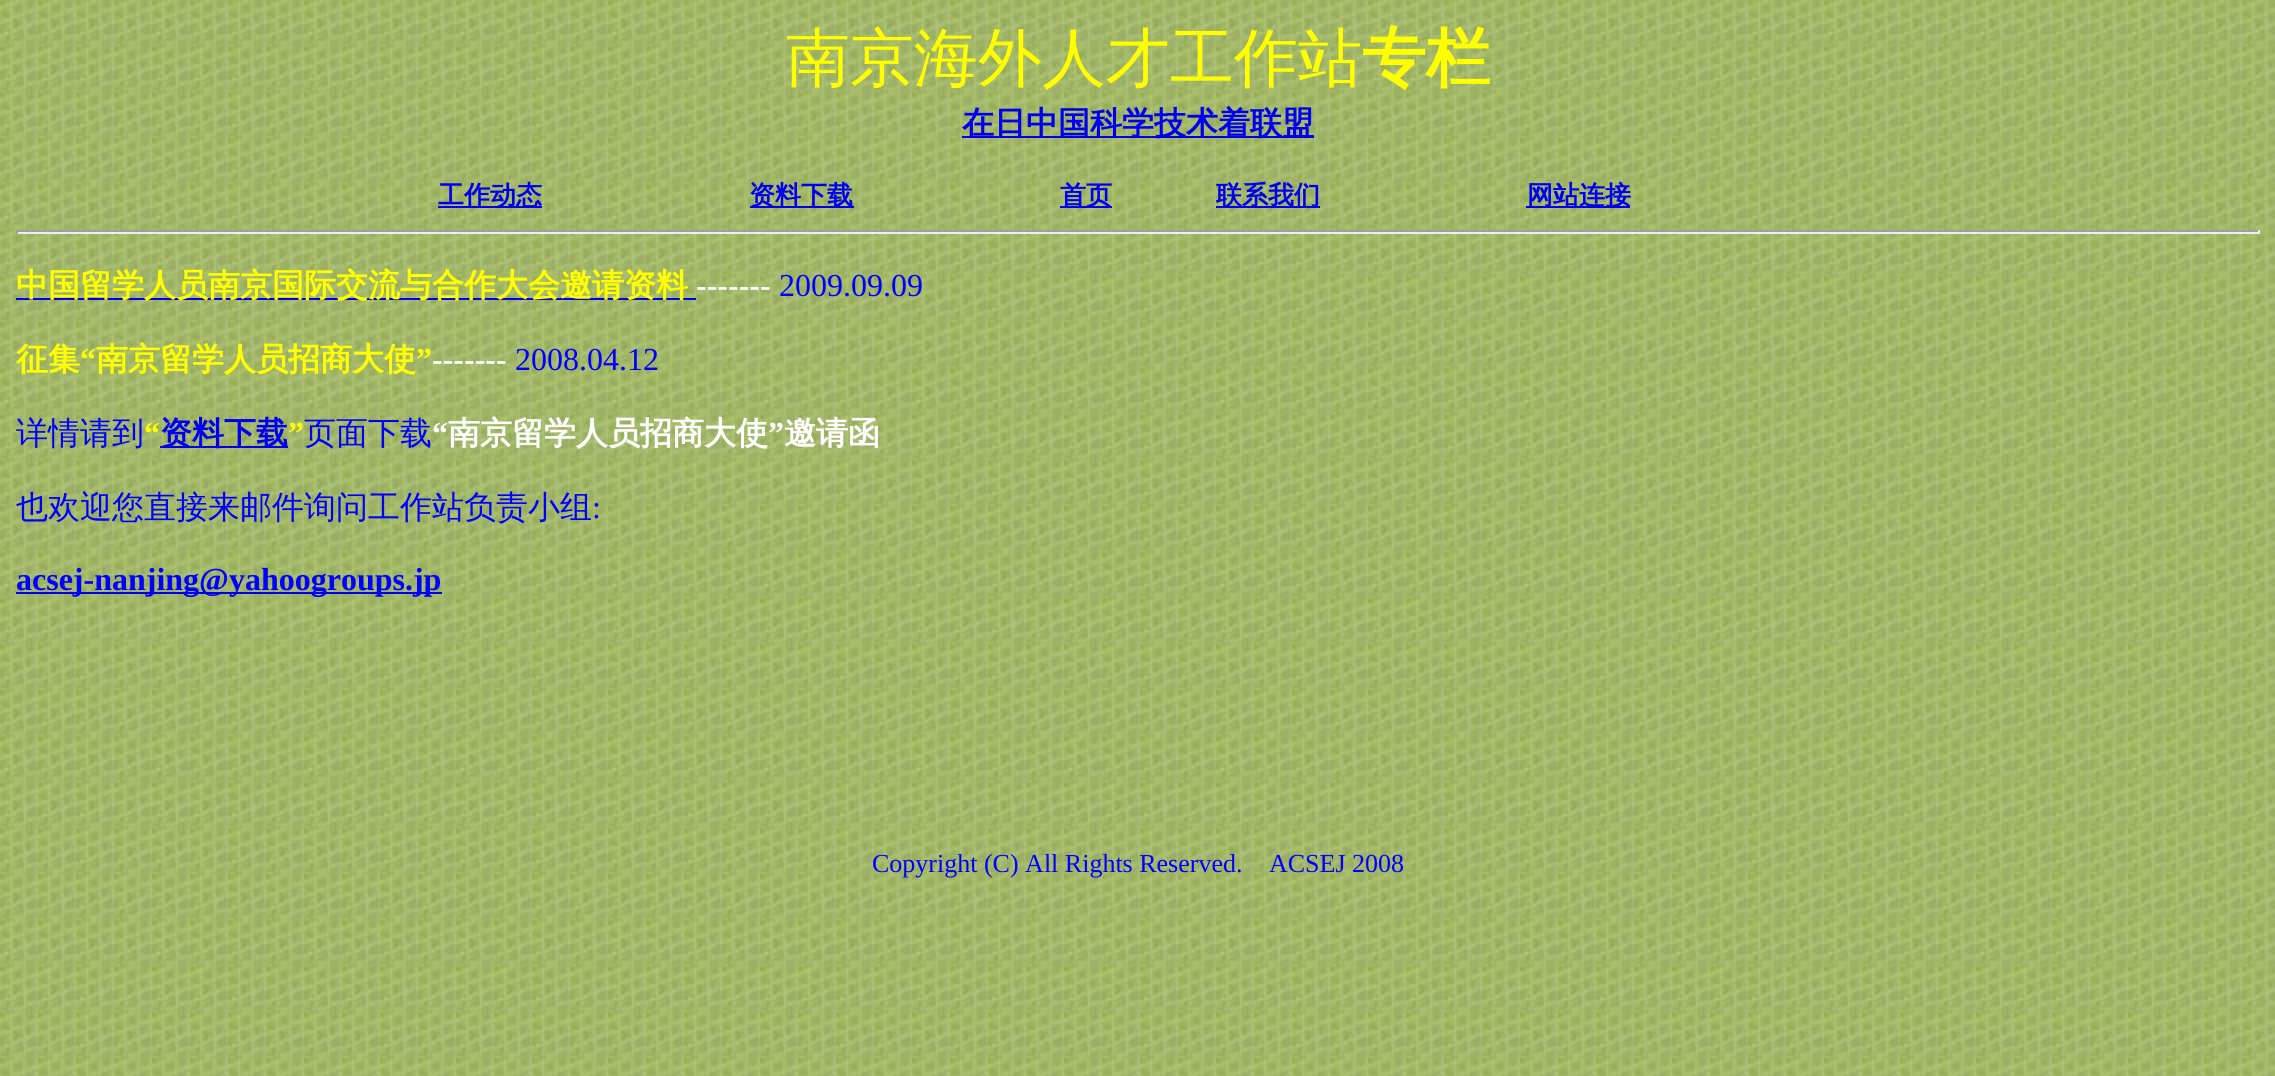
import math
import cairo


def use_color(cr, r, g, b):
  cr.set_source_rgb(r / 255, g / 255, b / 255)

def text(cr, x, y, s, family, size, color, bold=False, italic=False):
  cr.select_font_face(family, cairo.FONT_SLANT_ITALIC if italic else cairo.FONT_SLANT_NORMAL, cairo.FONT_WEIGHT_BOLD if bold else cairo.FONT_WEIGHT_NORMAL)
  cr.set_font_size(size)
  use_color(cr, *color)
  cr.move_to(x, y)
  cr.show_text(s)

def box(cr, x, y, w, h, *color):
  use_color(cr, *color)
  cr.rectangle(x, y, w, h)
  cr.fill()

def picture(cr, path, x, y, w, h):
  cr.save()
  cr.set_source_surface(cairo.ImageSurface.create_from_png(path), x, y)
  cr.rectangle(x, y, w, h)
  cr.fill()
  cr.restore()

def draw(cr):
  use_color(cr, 255, 255, 255)
  cr.paint()
  picture(cr, "img_01.png", 0, 0, 2275, 1076)
  box(cr, 962, 136, 352, 2, 0, 0, 238)
  box(cr, 438, 206, 104, 2, 0, 0, 238)
  box(cr, 750, 206, 104, 2, 0, 0, 238)
  box(cr, 1060, 206, 52, 2, 0, 0, 238)
  box(cr, 1216, 206, 104, 2, 0, 0, 238)
  box(cr, 1526, 206, 104, 2, 0, 0, 238)
  box(cr, 16, 230, 2244, 2, 159, 159, 159)
  box(cr, 2258, 230, 2, 4, 238, 238, 238)
  box(cr, 16, 232, 2244, 2, 238, 238, 238)
  box(cr, 16, 230, 2, 4, 159, 159, 159)
  box(cr, 16, 298, 680, 2, 0, 0, 238)
  box(cr, 160, 446, 128, 2, 0, 0, 238)
  box(cr, 16, 592, 426, 2, 0, 0, 238)
  text(cr, 786, 80, "南京海外人才工作站", "WenQuanYi Zen Hei Medium", 64, (255, 255, 0))
  text(cr, 1362, 80, "专栏", "WenQuanYi Zen Hei", 64, (255, 255, 0), bold=True)
  text(cr, 962, 134, "在日中国科学技术着联盟", "WenQuanYi Zen Hei", 32, (0, 0, 238), bold=True)
  text(cr, 438, 204, "工作动态", "WenQuanYi Zen Hei", 26, (0, 0, 238), bold=True)
  text(cr, 749, 204, "资料下载", "WenQuanYi Zen Hei", 26, (0, 0, 238), bold=True)
  text(cr, 1060, 204, "首页", "WenQuanYi Zen Hei", 26, (0, 0, 238), bold=True)
  text(cr, 1216, 204, "联系我们", "WenQuanYi Zen Hei", 26, (0, 0, 238), bold=True)
  text(cr, 1527, 204, "网站连接", "WenQuanYi Zen Hei", 26, (0, 0, 238), bold=True)
  text(cr, 16, 296, "中国留学人员南京国际交流与合作大会邀请资料", "WenQuanYi Zen Hei", 32, (255, 255, 0), bold=True)
  text(cr, 696, 296, "-------", "Liberation Serif", 32, (255, 255, 255), bold=True)
  text(cr, 779, 296, "2009.09.09", "Liberation Serif", 32, (0, 0, 255))
  text(cr, 16, 370, "征集", "WenQuanYi Zen Hei", 32, (255, 255, 0), bold=True)
  text(cr, 80, 370, "“", "Liberation Serif", 32, (255, 255, 0), bold=True)
  text(cr, 96, 370, "南京留学人员招商大使", "WenQuanYi Zen Hei", 32, (255, 255, 0), bold=True)
  text(cr, 416, 370, "”", "Liberation Serif", 32, (255, 255, 0), bold=True)
  text(cr, 432, 370, "-------", "Liberation Serif", 32, (255, 255, 255), bold=True)
  text(cr, 515, 370, "2008.04.12", "Liberation Serif", 32, (0, 0, 255))
  text(cr, 16, 444, "详情请到", "WenQuanYi Zen Hei Medium", 32, (0, 0, 255))
  text(cr, 144, 444, "“", "Liberation Serif", 32, (255, 255, 0), bold=True)
  text(cr, 160, 444, "资料下载", "WenQuanYi Zen Hei", 32, (0, 0, 238), bold=True)
  text(cr, 288, 444, "”", "Liberation Serif", 32, (255, 255, 0), bold=True)
  text(cr, 304, 444, "页面下载", "WenQuanYi Zen Hei Medium", 32, (0, 0, 255))
  text(cr, 432, 444, "“", "Liberation Serif", 32, (255, 255, 255), bold=True)
  text(cr, 448, 444, "南京留学人员招商大使", "WenQuanYi Zen Hei", 32, (255, 255, 255), bold=True)
  text(cr, 768, 444, "”", "Liberation Serif", 32, (255, 255, 255), bold=True)
  text(cr, 784, 444, "邀请函", "WenQuanYi Zen Hei", 32, (255, 255, 255), bold=True)
  text(cr, 16, 518, "也欢迎您直接来邮件询问工作站负责小组", "WenQuanYi Zen Hei Medium", 32, (0, 0, 255))
  text(cr, 592, 518, ":", "Liberation Serif", 32, (0, 0, 255))
  text(cr, 16, 590, "acsej-nanjing@yahoogroups.jp", "Liberation Serif", 32, (0, 0, 255), bold=True)
  text(cr, 872, 872, "Copyright (C) All Rights Reserved.", "Liberation Serif", 26, (0, 0, 255))
  text(cr, 1269, 872, "ACSEJ 2008", "Liberation Serif", 26, (0, 0, 255))


surface = cairo.ImageSurface(cairo.FORMAT_RGB24, 2275, 1076)
cr = cairo.Context(surface)
options = cairo.FontOptions()
options.set_hint_metrics(cairo.HINT_METRICS_OFF)
options.set_hint_style(cairo.HINT_STYLE_NONE)
cr.set_font_options(options)
cr.set_miter_limit(4)
draw(cr)
surface.write_to_png("out.png")
